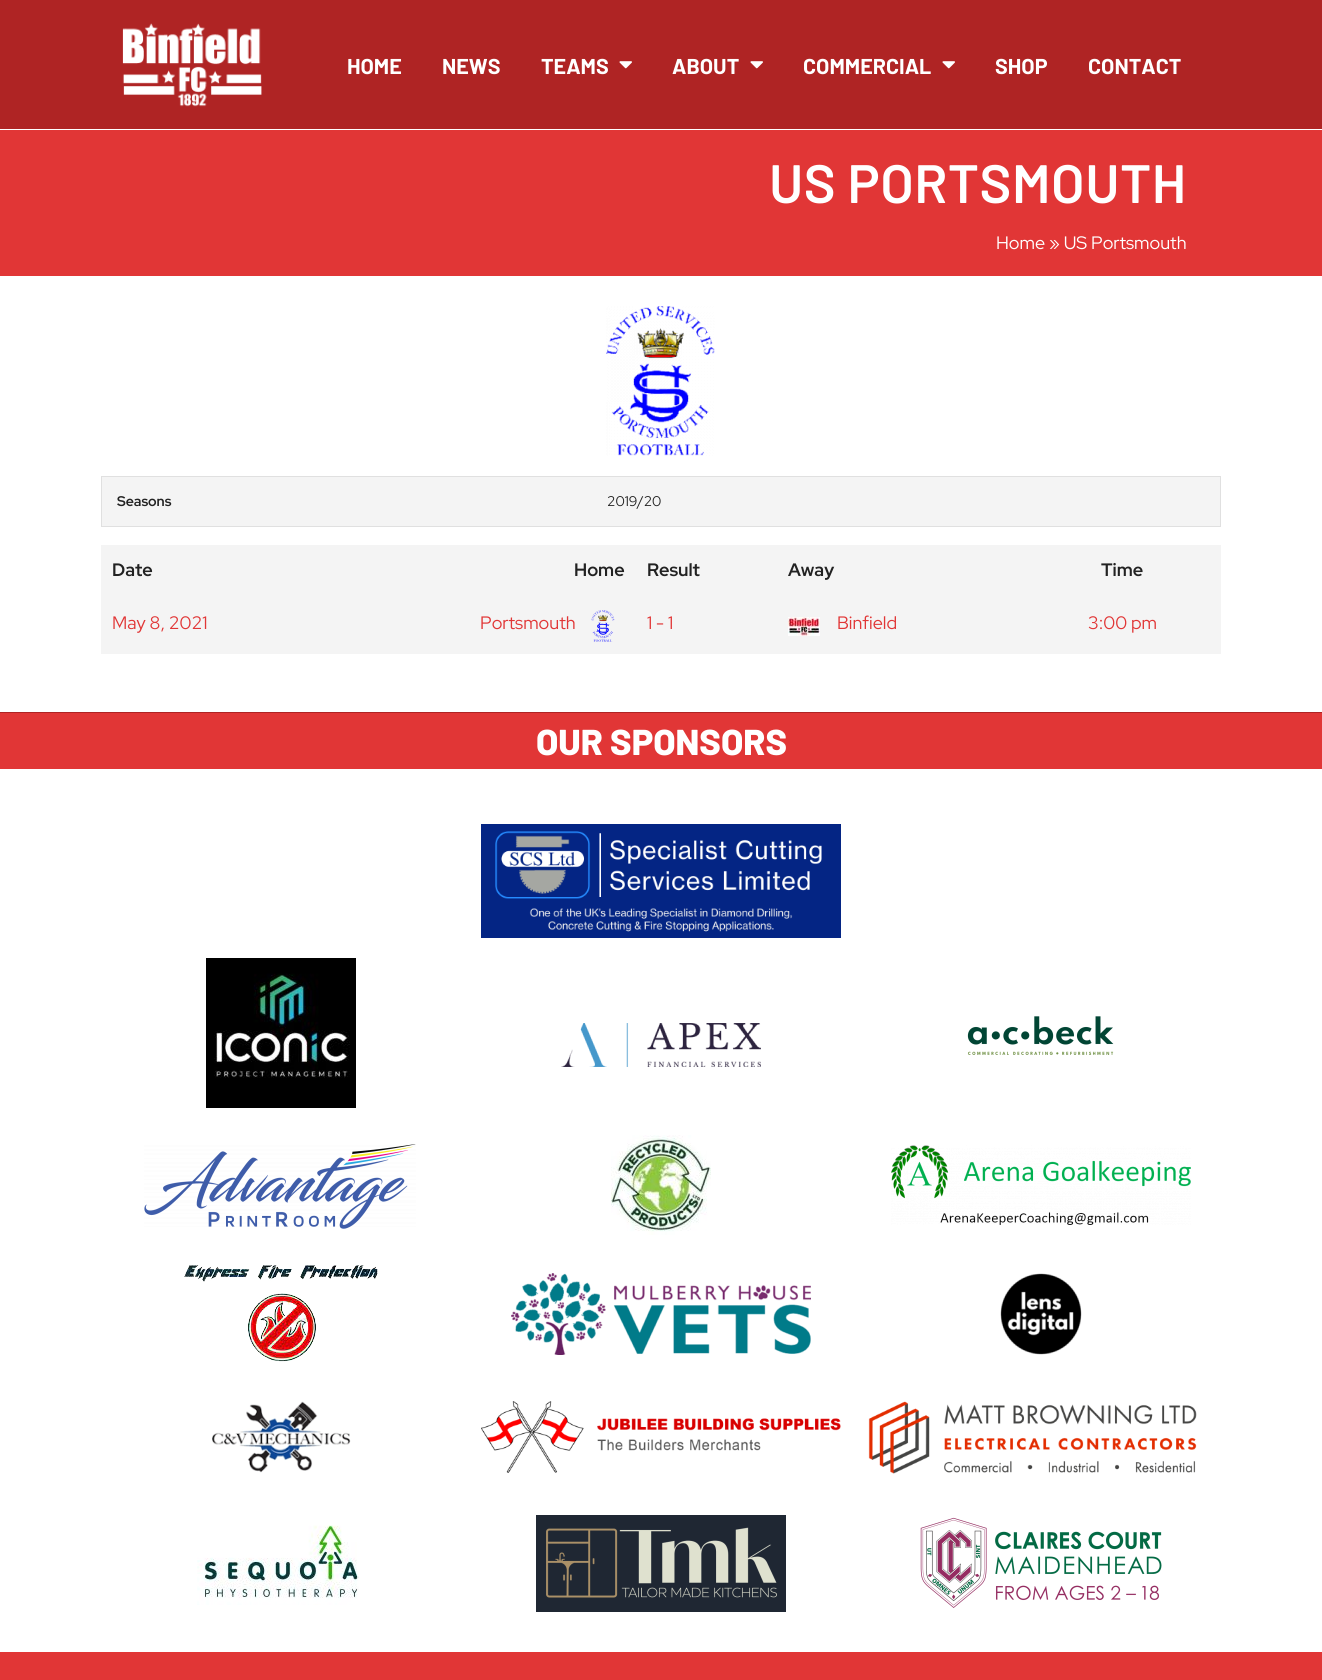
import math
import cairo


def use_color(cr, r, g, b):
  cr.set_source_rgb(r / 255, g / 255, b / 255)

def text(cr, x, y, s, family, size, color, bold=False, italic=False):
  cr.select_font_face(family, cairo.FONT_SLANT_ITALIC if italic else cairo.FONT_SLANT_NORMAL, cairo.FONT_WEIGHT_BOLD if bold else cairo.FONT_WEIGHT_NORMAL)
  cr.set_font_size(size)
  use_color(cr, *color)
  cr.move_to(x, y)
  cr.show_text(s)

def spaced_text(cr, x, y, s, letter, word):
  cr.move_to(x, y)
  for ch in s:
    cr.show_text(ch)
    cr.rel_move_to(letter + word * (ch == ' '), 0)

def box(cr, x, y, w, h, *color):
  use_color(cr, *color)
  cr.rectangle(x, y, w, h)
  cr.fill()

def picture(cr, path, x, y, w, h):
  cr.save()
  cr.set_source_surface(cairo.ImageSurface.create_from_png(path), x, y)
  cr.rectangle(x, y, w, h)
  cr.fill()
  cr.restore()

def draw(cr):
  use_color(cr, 255, 255, 255)
  cr.paint()
  box(cr, 0, 0, 1322, 129, 175, 36, 36)
  picture(cr, "img_01.png", 122, 23, 140, 84)
  picture(cr, "img_02.png", 619, 61, 13, 8)
  picture(cr, "img_02.png", 750, 61, 13, 8)
  picture(cr, "img_02.png", 942, 61, 13, 8)
  box(cr, 0, 130, 1322, 146, 225, 54, 54)
  picture(cr, "img_03.png", 606, 306, 109, 150)
  use_color(cr, 244, 244, 244)
  cr.rectangle(101.5, 476.5, 1119, 50)
  cr.fill_preserve()
  use_color(cr, 224, 224, 224)
  cr.set_line_width(1)
  cr.stroke()
  box(cr, 101, 545, 1120, 109, 244, 244, 244)
  picture(cr, "img_04.png", 591, 610, 24, 32)
  picture(cr, "img_05.png", 788, 617, 32, 19)
  box(cr, 0, 713, 1322, 56, 225, 54, 54)
  box(cr, 0, 712, 1322, 1, 175, 36, 36)
  picture(cr, "img_06.png", 481, 824, 360, 114)
  picture(cr, "img_07.png", 206, 958, 150, 150)
  picture(cr, "img_08.png", 561, 1023, 200, 44)
  picture(cr, "img_09.png", 967, 1016, 147, 39)
  picture(cr, "img_10.png", 144, 1144, 272, 85)
  picture(cr, "img_11.png", 611, 1135, 100, 100)
  picture(cr, "img_12.png", 891, 1145, 300, 80)
  picture(cr, "img_13.png", 184, 1265, 194, 97)
  picture(cr, "img_14.png", 511, 1273, 300, 82)
  picture(cr, "img_15.png", 1000, 1273, 82, 82)
  picture(cr, "img_16.png", 212, 1401, 139, 72)
  picture(cr, "img_17.png", 481, 1401, 360, 72)
  picture(cr, "img_18.png", 868, 1401, 329, 73)
  picture(cr, "img_19.png", 197, 1525, 162, 80)
  picture(cr, "img_20.png", 536, 1515, 250, 97)
  picture(cr, "img_21.png", 920, 1517, 242, 91)
  box(cr, 0, 1652, 1322, 28, 225, 54, 54)
  text(cr, 347, 74, "HOME", "Barlow", 21.5, (255, 255, 255), bold=True)
  text(cr, 442, 74, "NEWS", "Barlow", 21.5, (255, 255, 255), bold=True)
  text(cr, 541, 74, "TEAMS", "Barlow", 21.5, (255, 255, 255), bold=True)
  text(cr, 672, 74, "ABOUT", "Barlow", 21.5, (255, 255, 255), bold=True)
  text(cr, 803, 74, "COMMERCIAL", "Barlow", 21.5, (255, 255, 255), bold=True)
  text(cr, 995, 74, "SHOP", "Barlow", 21.5, (255, 255, 255), bold=True)
  text(cr, 1088, 74, "CONTACT", "Barlow", 21.5, (255, 255, 255), bold=True)
  cr.select_font_face("Barlow SemiBold")
  cr.set_font_size(54)
  spaced_text(cr, 769, 203, "US PORTSMOUTH", 0.5, 0)
  text(cr, 996, 249, "Home » US Portsmouth", "Red Hat Display", 18, (255, 255, 255))
  text(cr, 117, 506, "Seasons", "Red Hat Display", 14, (34, 34, 34), bold=True)
  text(cr, 607, 506, "2019/20", "Red Hat Display", 14, (34, 34, 34))
  text(cr, 112, 576, "Date", "Red Hat Display", 18, (34, 34, 34), bold=True)
  text(cr, 574, 576, "Home", "Red Hat Display", 18, (34, 34, 34), bold=True)
  text(cr, 647, 576, "Result", "Red Hat Display", 18, (34, 34, 34), bold=True)
  text(cr, 788, 576, "Away", "Red Hat Display", 18, (34, 34, 34), bold=True)
  text(cr, 1101, 576, "Time", "Red Hat Display", 18, (34, 34, 34), bold=True)
  text(cr, 112, 629, "May 8, 2021", "Red Hat Display", 18, (225, 54, 54))
  text(cr, 480, 629, "Portsmouth", "Red Hat Display", 18, (225, 54, 54))
  text(cr, 647, 629, "1 - 1", "Red Hat Display", 18, (225, 54, 54))
  text(cr, 837, 629, "Binfield", "Red Hat Display", 18, (225, 54, 54))
  text(cr, 1088, 629, "3:00 pm", "Red Hat Display", 18, (225, 54, 54))
  text(cr, 536, 755, "OUR SPONSORS", "Barlow ExtraBold", 36, (255, 255, 255))


surface = cairo.ImageSurface(cairo.FORMAT_RGB24, 1322, 1680)
cr = cairo.Context(surface)
options = cairo.FontOptions()
options.set_hint_metrics(cairo.HINT_METRICS_OFF)
options.set_hint_style(cairo.HINT_STYLE_NONE)
cr.set_font_options(options)
cr.set_miter_limit(4)
draw(cr)
surface.write_to_png("out.png")
